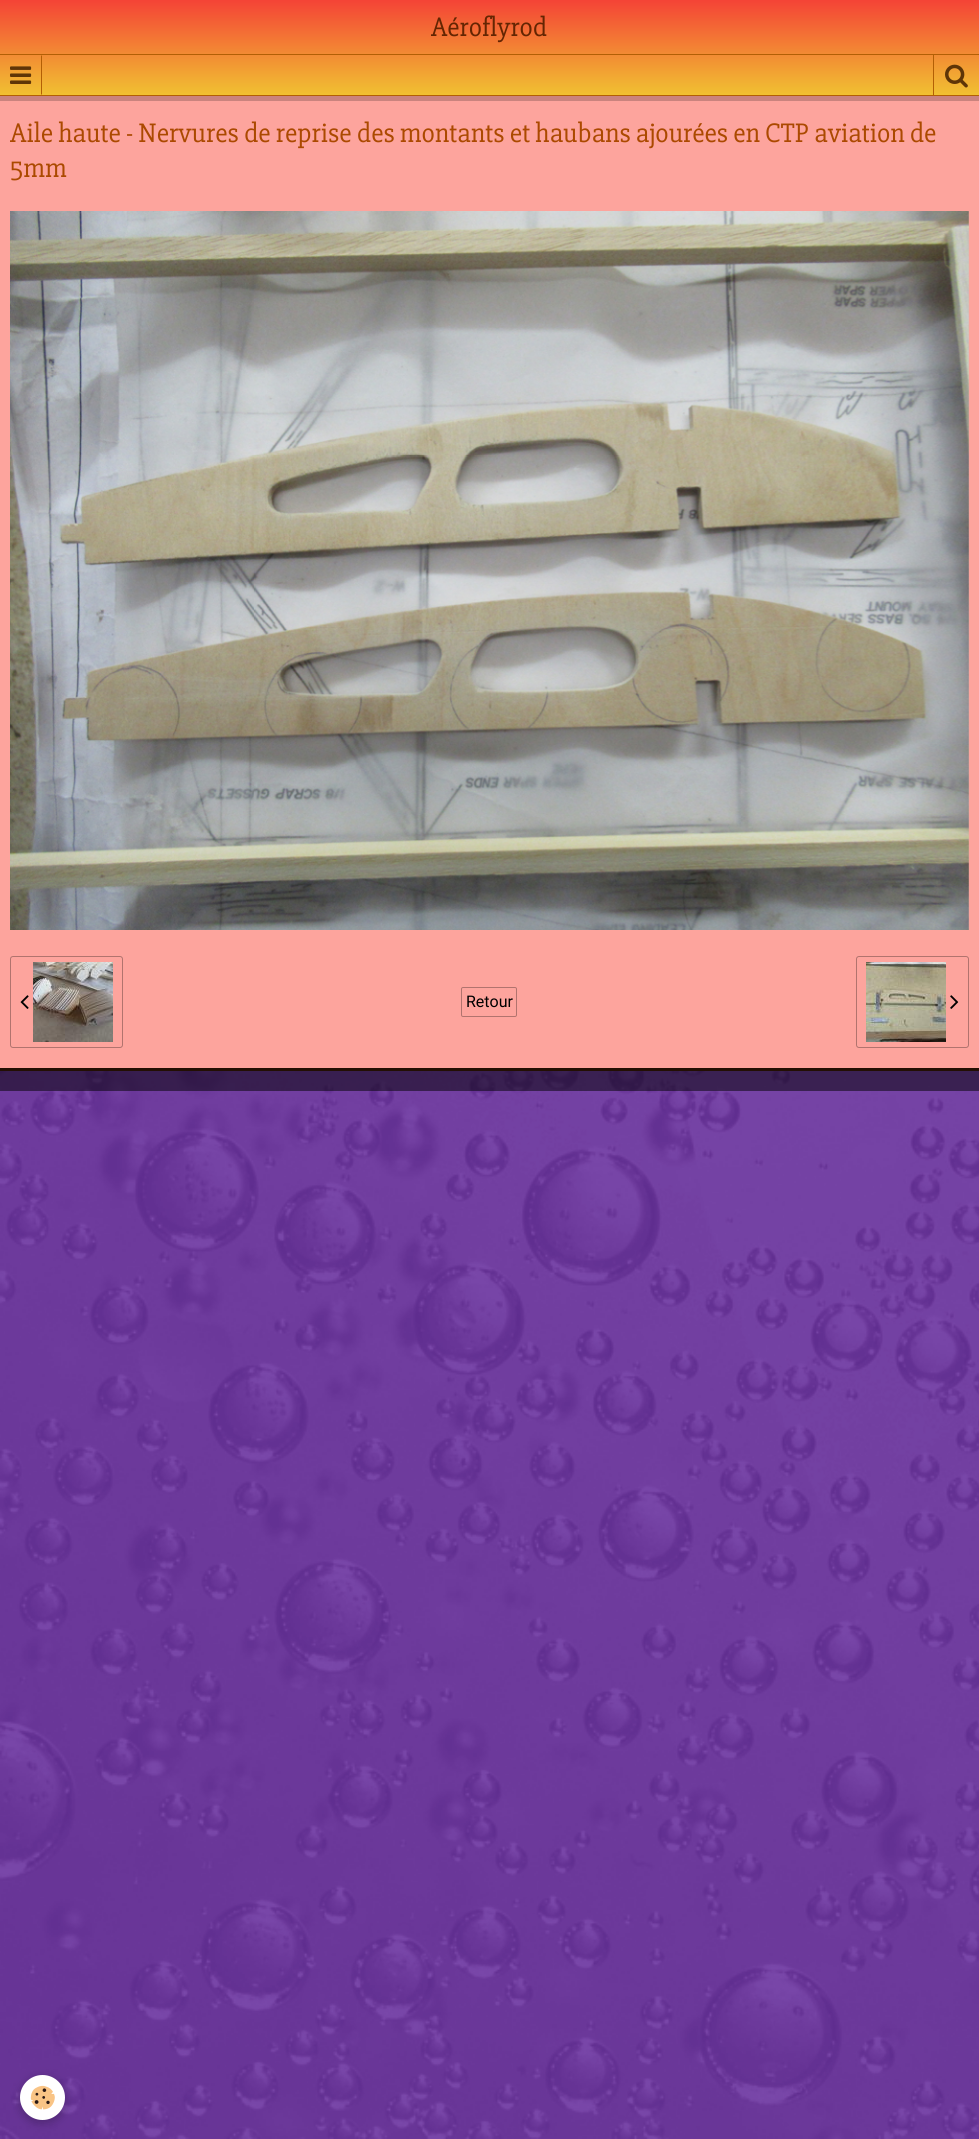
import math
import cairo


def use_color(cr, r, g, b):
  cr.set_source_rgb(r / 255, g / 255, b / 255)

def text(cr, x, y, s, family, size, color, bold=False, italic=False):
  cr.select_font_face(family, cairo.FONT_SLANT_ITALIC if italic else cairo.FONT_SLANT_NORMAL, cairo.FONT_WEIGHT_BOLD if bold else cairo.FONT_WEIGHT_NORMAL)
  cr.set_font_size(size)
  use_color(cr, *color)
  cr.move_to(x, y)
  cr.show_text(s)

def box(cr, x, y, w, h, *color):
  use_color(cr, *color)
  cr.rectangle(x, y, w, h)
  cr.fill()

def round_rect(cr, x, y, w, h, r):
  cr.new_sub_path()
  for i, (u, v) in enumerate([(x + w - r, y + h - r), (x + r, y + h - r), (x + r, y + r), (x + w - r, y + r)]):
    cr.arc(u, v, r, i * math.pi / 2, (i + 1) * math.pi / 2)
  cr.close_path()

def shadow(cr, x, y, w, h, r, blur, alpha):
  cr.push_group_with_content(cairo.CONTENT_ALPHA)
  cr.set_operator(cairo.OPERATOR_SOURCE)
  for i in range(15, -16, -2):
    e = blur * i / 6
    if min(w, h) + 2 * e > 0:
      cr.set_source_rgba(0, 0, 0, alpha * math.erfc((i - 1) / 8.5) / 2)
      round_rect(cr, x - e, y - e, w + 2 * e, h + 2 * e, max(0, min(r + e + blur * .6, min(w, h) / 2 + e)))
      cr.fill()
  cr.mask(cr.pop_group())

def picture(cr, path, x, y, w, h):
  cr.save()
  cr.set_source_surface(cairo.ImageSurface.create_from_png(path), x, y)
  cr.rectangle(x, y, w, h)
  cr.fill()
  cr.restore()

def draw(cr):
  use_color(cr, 106, 50, 159)
  cr.paint()
  picture(cr, "img_01.png", 0, 1071, 979, 1068)
  box(cr, 0, 96, 979, 5, 202, 131, 126)
  gradient = cairo.LinearGradient(490, 0, 490, 96)
  gradient.add_color_stop_rgba(0, 0.957, 0.263, 0.212, 1)
  gradient.add_color_stop_rgba(1, 0.945, 0.761, 0.196, 1)
  cr.set_source(gradient)
  cr.rectangle(0, 0, 979, 95)
  cr.fill()
  box(cr, 0, 54, 979, 1, 179, 95, 5)
  box(cr, 0, 95, 979, 1, 179, 95, 5)
  cr.new_path()
  cr.move_to(42, 55)
  cr.line_to(42, 95)
  cr.line_to(41, 94)
  cr.line_to(41, 56)
  cr.close_path()
  cr.fill()
  picture(cr, "img_02.png", 10, 66, 22, 18)
  box(cr, 933, 55, 1, 40, 179, 95, 5)
  picture(cr, "img_03.png", 945, 64, 23, 24)
  box(cr, 0, 101, 979, 967, 253, 164, 157)
  picture(cr, "img_04.png", 10, 211, 959, 719)
  picture(cr, "img_05.png", 20, 995, 9, 14)
  picture(cr, "img_06.png", 33, 962, 80, 80)
  round_rect(cr, 10.5, 956.5, 112, 91, 2.5)
  use_color(cr, 177, 115, 110)
  cr.set_line_width(1)
  cr.stroke()
  round_rect(cr, 461.5, 987.5, 55, 29, 1.5)
  cr.stroke()
  picture(cr, "img_07.png", 866, 962, 80, 80)
  picture(cr, "img_08.png", 950, 995, 9, 14)
  round_rect(cr, 856.5, 956.5, 112, 91, 2.5)
  cr.stroke()
  cr.set_source_rgba(0, 0, 0, 0.5)
  cr.rectangle(0, 1071, 979, 20)
  cr.fill()
  box(cr, 0, 1068, 979, 3, 35, 15, 3)
  use_color(cr, 0, 0, 0)
  shadow(cr, 20, 2078, 45, 45, 22.5, 5, 0.24)
  use_color(cr, 255, 255, 255)
  cr.arc(42.5, 2097.5, 22.5, 0, 2 * math.pi)
  cr.fill()
  picture(cr, "img_09.png", 30, 2085, 25, 25)
  text(cr, 431, 36, "Aéroflyrod", "Slabo 27px", 27.5, (100, 37, 2))
  text(cr, 10, 142, "Aile haute - Nervures de reprise des montants et haubans ajourées en CTP aviation de", "Slabo 27px", 27.7, (171, 73, 0))
  text(cr, 10, 177, "5mm", "Slabo 27px", 27.7, (171, 73, 0))
  text(cr, 466, 1007, "Retour", "Roboto", 16, (0, 0, 0))


surface = cairo.ImageSurface(cairo.FORMAT_RGB24, 979, 2139)
cr = cairo.Context(surface)
options = cairo.FontOptions()
options.set_hint_metrics(cairo.HINT_METRICS_OFF)
options.set_hint_style(cairo.HINT_STYLE_NONE)
cr.set_font_options(options)
cr.set_miter_limit(4)
draw(cr)
surface.write_to_png("out.png")
